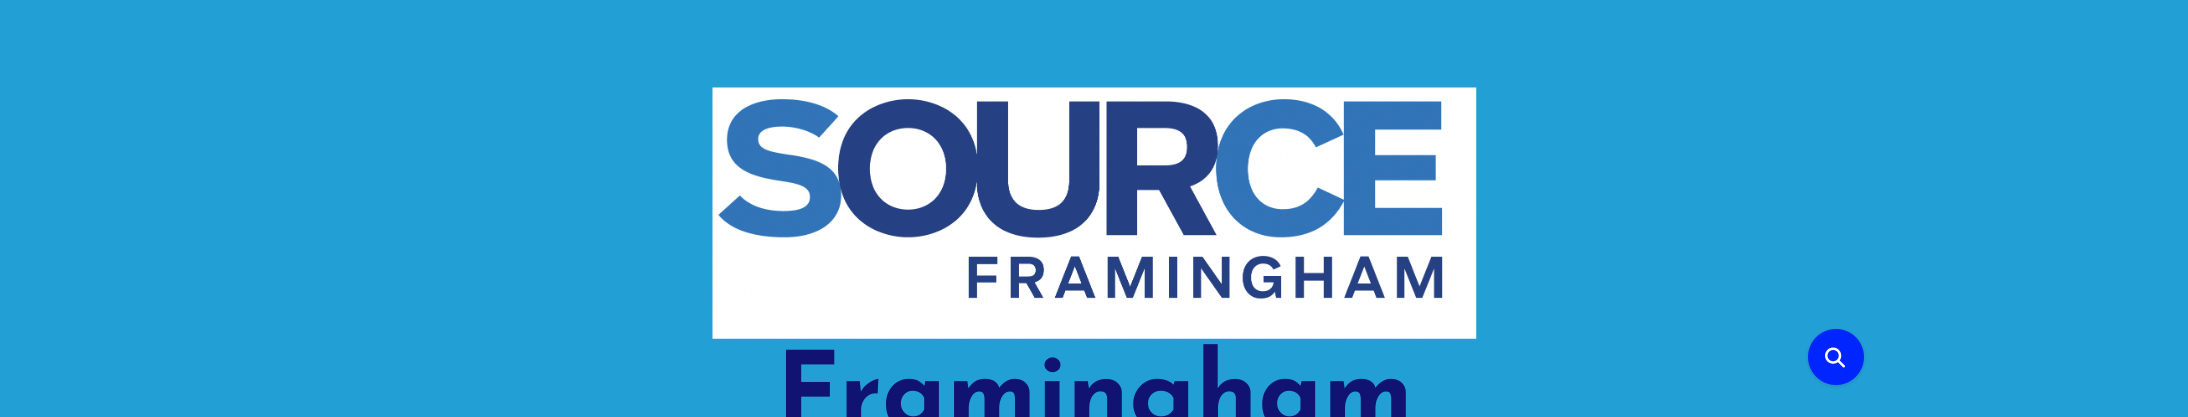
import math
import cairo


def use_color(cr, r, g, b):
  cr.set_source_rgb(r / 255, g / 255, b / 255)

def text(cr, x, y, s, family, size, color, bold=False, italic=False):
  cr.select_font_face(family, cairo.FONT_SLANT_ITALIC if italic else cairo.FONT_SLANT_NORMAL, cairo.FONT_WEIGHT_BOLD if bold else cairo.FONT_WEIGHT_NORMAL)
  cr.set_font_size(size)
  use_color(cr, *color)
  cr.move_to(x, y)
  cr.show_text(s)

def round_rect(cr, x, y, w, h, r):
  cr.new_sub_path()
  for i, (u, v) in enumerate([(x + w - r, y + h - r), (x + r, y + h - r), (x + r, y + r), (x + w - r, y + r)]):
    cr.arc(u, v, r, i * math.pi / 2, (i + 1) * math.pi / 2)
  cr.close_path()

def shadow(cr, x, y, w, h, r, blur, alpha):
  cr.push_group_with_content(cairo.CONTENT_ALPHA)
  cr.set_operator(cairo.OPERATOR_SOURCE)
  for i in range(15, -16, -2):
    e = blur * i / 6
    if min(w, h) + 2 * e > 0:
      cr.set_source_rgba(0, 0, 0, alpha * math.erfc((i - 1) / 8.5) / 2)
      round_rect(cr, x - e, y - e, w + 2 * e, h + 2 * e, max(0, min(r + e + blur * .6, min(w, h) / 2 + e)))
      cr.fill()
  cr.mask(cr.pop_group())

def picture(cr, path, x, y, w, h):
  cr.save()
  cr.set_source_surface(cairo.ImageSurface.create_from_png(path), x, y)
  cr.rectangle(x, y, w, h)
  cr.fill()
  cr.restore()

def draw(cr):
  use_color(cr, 34, 160, 214)
  cr.paint()
  picture(cr, "img_01.png", 712, 87, 765, 252)
  use_color(cr, 0, 0, 0)
  shadow(cr, 1808, 330, 56, 56, 28, 2, 0.15)
  use_color(cr, 0, 37, 255)
  cr.arc(1836, 357, 28, 0, 2 * math.pi)
  cr.fill()
  picture(cr, "img_02.png", 1825, 347, 20, 21)
  text(cr, 776, 427, "Framingham", "Josefin Sans", 105, (16, 19, 114), bold=True)


surface = cairo.ImageSurface(cairo.FORMAT_RGB24, 2188, 417)
cr = cairo.Context(surface)
options = cairo.FontOptions()
options.set_hint_metrics(cairo.HINT_METRICS_OFF)
options.set_hint_style(cairo.HINT_STYLE_NONE)
cr.set_font_options(options)
cr.set_miter_limit(4)
draw(cr)
surface.write_to_png("out.png")
